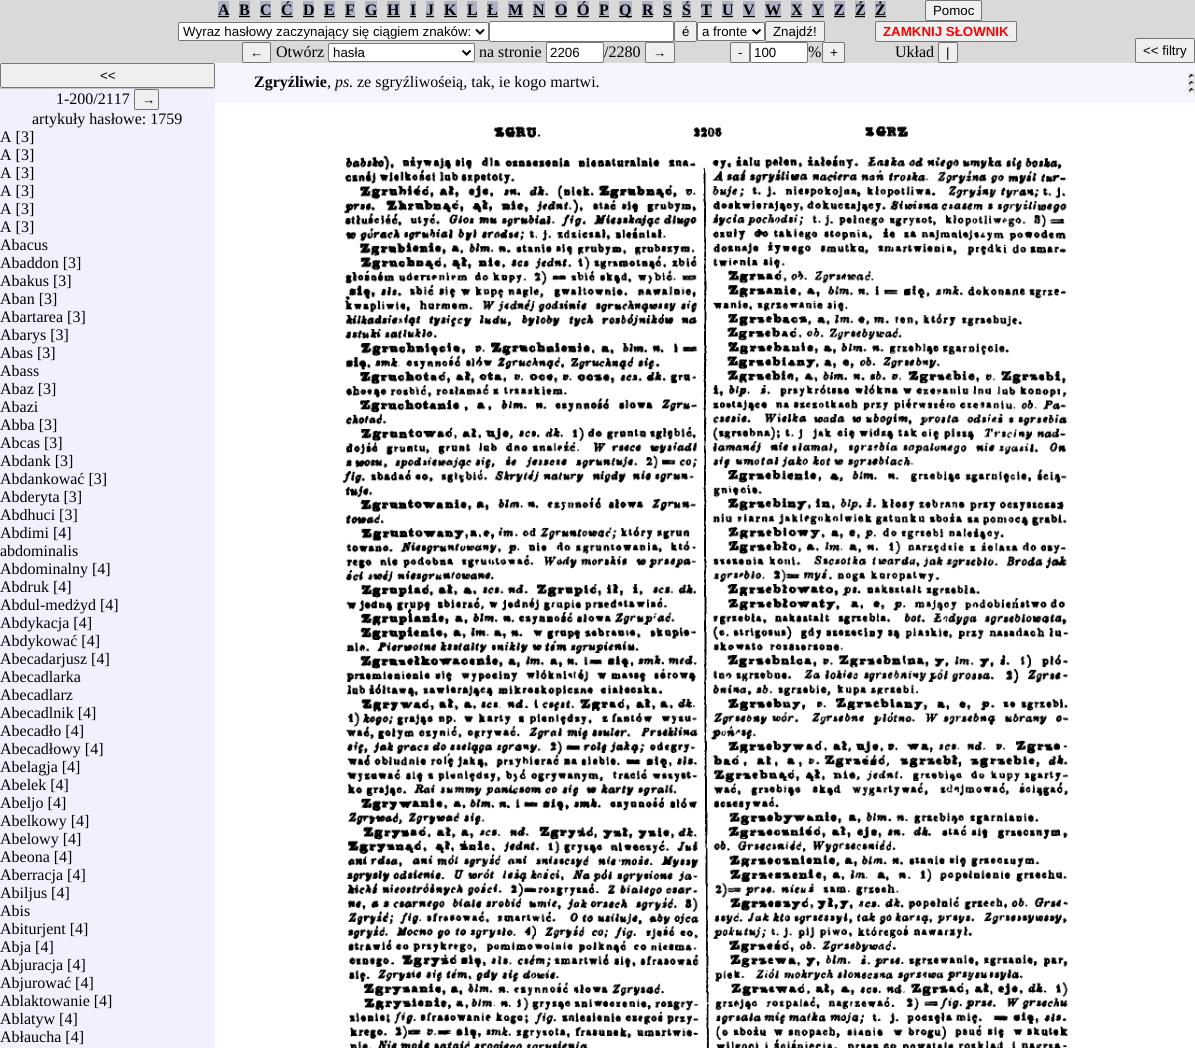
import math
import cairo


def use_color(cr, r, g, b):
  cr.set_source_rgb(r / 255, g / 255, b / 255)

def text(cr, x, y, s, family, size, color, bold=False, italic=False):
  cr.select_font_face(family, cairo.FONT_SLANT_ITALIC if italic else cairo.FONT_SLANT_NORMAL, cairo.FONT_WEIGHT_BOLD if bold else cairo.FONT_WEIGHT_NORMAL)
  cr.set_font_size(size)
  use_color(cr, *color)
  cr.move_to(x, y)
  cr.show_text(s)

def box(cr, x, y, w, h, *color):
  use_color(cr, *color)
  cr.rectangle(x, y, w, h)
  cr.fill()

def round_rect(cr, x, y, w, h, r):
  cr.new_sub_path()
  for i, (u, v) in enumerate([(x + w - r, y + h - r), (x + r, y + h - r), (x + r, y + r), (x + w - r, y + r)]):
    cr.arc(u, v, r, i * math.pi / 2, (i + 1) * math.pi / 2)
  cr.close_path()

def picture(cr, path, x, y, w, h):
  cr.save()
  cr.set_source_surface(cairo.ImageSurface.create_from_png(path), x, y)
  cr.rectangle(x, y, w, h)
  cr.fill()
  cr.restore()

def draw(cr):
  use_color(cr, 255, 255, 255)
  cr.paint()
  box(cr, 0, 0, 1195, 63, 217, 217, 217)
  box(cr, 218, 1, 11, 17, 174, 178, 199)
  box(cr, 218, 16, 11, 1, 0, 0, 0)
  box(cr, 239, 1, 11, 17, 174, 178, 199)
  box(cr, 239, 16, 11, 1, 0, 0, 0)
  box(cr, 260, 1, 11, 17, 174, 178, 199)
  box(cr, 260, 16, 11, 1, 0, 0, 0)
  box(cr, 281, 1, 12, 17, 174, 178, 199)
  box(cr, 281, 16, 12, 1, 0, 0, 0)
  box(cr, 303, 1, 11, 17, 174, 178, 199)
  box(cr, 303, 16, 11, 1, 0, 0, 0)
  box(cr, 324, 1, 11, 17, 174, 178, 199)
  box(cr, 324, 16, 11, 1, 0, 0, 0)
  box(cr, 345, 1, 10, 17, 174, 178, 199)
  box(cr, 345, 16, 10, 1, 0, 0, 0)
  box(cr, 365, 1, 12, 17, 174, 178, 199)
  box(cr, 365, 16, 12, 1, 0, 0, 0)
  box(cr, 387, 1, 13, 17, 174, 178, 199)
  box(cr, 387, 16, 13, 1, 0, 0, 0)
  box(cr, 410, 1, 6, 17, 174, 178, 199)
  box(cr, 410, 16, 6, 1, 0, 0, 0)
  box(cr, 426, 1, 8, 17, 174, 178, 199)
  box(cr, 426, 16, 8, 1, 0, 0, 0)
  box(cr, 444, 1, 13, 17, 174, 178, 199)
  box(cr, 444, 16, 13, 1, 0, 0, 0)
  box(cr, 467, 1, 10, 17, 174, 178, 199)
  box(cr, 467, 16, 10, 1, 0, 0, 0)
  box(cr, 487, 1, 11, 17, 174, 178, 199)
  box(cr, 487, 16, 11, 1, 0, 0, 0)
  box(cr, 508, 1, 15, 17, 174, 178, 199)
  box(cr, 508, 16, 15, 1, 0, 0, 0)
  box(cr, 533, 1, 12, 17, 174, 178, 199)
  box(cr, 533, 16, 12, 1, 0, 0, 0)
  box(cr, 555, 1, 12, 17, 174, 178, 199)
  box(cr, 555, 16, 12, 1, 0, 0, 0)
  box(cr, 577, 1, 12, 17, 174, 178, 199)
  box(cr, 577, 16, 12, 1, 0, 0, 0)
  box(cr, 599, 1, 10, 17, 174, 178, 199)
  box(cr, 599, 16, 10, 1, 0, 0, 0)
  box(cr, 619, 1, 13, 17, 174, 178, 199)
  box(cr, 619, 16, 13, 1, 0, 0, 0)
  box(cr, 642, 1, 11, 17, 174, 178, 199)
  box(cr, 642, 16, 11, 1, 0, 0, 0)
  box(cr, 663, 1, 9, 17, 174, 178, 199)
  box(cr, 663, 16, 9, 1, 0, 0, 0)
  box(cr, 682, 1, 9, 17, 174, 178, 199)
  box(cr, 682, 16, 9, 1, 0, 0, 0)
  box(cr, 701, 1, 11, 17, 174, 178, 199)
  box(cr, 701, 16, 11, 1, 0, 0, 0)
  box(cr, 722, 1, 11, 17, 174, 178, 199)
  box(cr, 722, 16, 11, 1, 0, 0, 0)
  box(cr, 743, 1, 12, 17, 174, 178, 199)
  box(cr, 743, 16, 12, 1, 0, 0, 0)
  box(cr, 765, 1, 16, 17, 174, 178, 199)
  box(cr, 765, 16, 16, 1, 0, 0, 0)
  box(cr, 791, 1, 11, 17, 174, 178, 199)
  box(cr, 791, 16, 11, 1, 0, 0, 0)
  box(cr, 812, 1, 12, 17, 174, 178, 199)
  box(cr, 812, 16, 12, 1, 0, 0, 0)
  box(cr, 834, 1, 11, 17, 174, 178, 199)
  box(cr, 834, 16, 11, 1, 0, 0, 0)
  box(cr, 855, 1, 10, 17, 174, 178, 199)
  box(cr, 855, 16, 10, 1, 0, 0, 0)
  box(cr, 875, 1, 11, 17, 174, 178, 199)
  box(cr, 875, 16, 11, 1, 0, 0, 0)
  use_color(cr, 239, 239, 239)
  round_rect(cr, 925.5, 0.5, 56, 20, 1.5)
  cr.fill_preserve()
  use_color(cr, 118, 118, 118)
  cr.set_line_width(1)
  cr.stroke()
  use_color(cr, 255, 255, 255)
  round_rect(cr, 178.5, 22.5, 310, 18, 1.5)
  cr.fill_preserve()
  use_color(cr, 118, 118, 118)
  cr.stroke()
  cr.new_path()
  cr.move_to(476, 29.5)
  cr.line_to(480, 33.5)
  cr.line_to(484, 29.5)
  use_color(cr, 0, 0, 0)
  cr.set_line_width(2)
  cr.stroke()
  use_color(cr, 255, 255, 255)
  round_rect(cr, 489.5, 21.5, 184, 20, 1.5)
  cr.fill_preserve()
  use_color(cr, 118, 118, 118)
  cr.set_line_width(1)
  cr.stroke()
  use_color(cr, 239, 239, 239)
  round_rect(cr, 674.5, 21.5, 22, 20, 1.5)
  cr.fill_preserve()
  use_color(cr, 118, 118, 118)
  cr.stroke()
  use_color(cr, 255, 255, 255)
  round_rect(cr, 697.5, 22.5, 67, 18, 1.5)
  cr.fill_preserve()
  use_color(cr, 118, 118, 118)
  cr.stroke()
  cr.new_path()
  cr.move_to(752.5, 29.5)
  cr.line_to(756.5, 33.5)
  cr.line_to(760.5, 29.5)
  use_color(cr, 0, 0, 0)
  cr.set_line_width(2)
  cr.stroke()
  use_color(cr, 239, 239, 239)
  round_rect(cr, 765.5, 21.5, 59, 20, 1.5)
  cr.fill_preserve()
  use_color(cr, 118, 118, 118)
  cr.set_line_width(1)
  cr.stroke()
  use_color(cr, 239, 239, 239)
  round_rect(cr, 875.5, 21.5, 141, 20, 1.5)
  cr.fill_preserve()
  use_color(cr, 118, 118, 118)
  cr.stroke()
  use_color(cr, 239, 239, 239)
  round_rect(cr, 242.5, 42.5, 28, 20, 1.5)
  cr.fill_preserve()
  use_color(cr, 118, 118, 118)
  cr.stroke()
  use_color(cr, 255, 255, 255)
  round_rect(cr, 328.5, 43.5, 146, 18, 1.5)
  cr.fill_preserve()
  use_color(cr, 118, 118, 118)
  cr.stroke()
  cr.new_path()
  cr.move_to(462.5, 50.5)
  cr.line_to(466.5, 54.5)
  cr.line_to(470.5, 50.5)
  use_color(cr, 0, 0, 0)
  cr.set_line_width(2)
  cr.stroke()
  use_color(cr, 255, 255, 255)
  round_rect(cr, 546.5, 42.5, 57, 20, 1.5)
  cr.fill_preserve()
  use_color(cr, 118, 118, 118)
  cr.set_line_width(1)
  cr.stroke()
  use_color(cr, 239, 239, 239)
  round_rect(cr, 645.5, 42.5, 29, 20, 1.5)
  cr.fill_preserve()
  use_color(cr, 118, 118, 118)
  cr.stroke()
  use_color(cr, 239, 239, 239)
  round_rect(cr, 730.5, 42.5, 19, 20, 1.5)
  cr.fill_preserve()
  use_color(cr, 118, 118, 118)
  cr.stroke()
  use_color(cr, 255, 255, 255)
  round_rect(cr, 750.5, 42.5, 57, 20, 1.5)
  cr.fill_preserve()
  use_color(cr, 118, 118, 118)
  cr.stroke()
  use_color(cr, 239, 239, 239)
  round_rect(cr, 822.5, 42.5, 22, 20, 1.5)
  cr.fill_preserve()
  use_color(cr, 118, 118, 118)
  cr.stroke()
  use_color(cr, 239, 239, 239)
  round_rect(cr, 938.5, 42.5, 19, 20, 1.5)
  cr.fill_preserve()
  use_color(cr, 118, 118, 118)
  cr.stroke()
  use_color(cr, 239, 239, 239)
  round_rect(cr, 1135.5, 38.5, 59, 24, 1.5)
  cr.fill_preserve()
  use_color(cr, 118, 118, 118)
  cr.stroke()
  use_color(cr, 239, 239, 239)
  round_rect(cr, 0.5, 63.5, 214, 24, 1.5)
  cr.fill_preserve()
  use_color(cr, 118, 118, 118)
  cr.stroke()
  box(cr, 215, 63, 980, 40, 245, 245, 255)
  box(cr, 1188, 73, 7, 20, 230, 230, 230)
  picture(cr, "img_01.png", 1189, 74, 5, 19)
  picture(cr, "img_02.png", 342, 126, 727, 922)
  box(cr, 0, 89, 215, 959, 240, 240, 255)
  box(cr, 0, 88, 215, 1, 200, 200, 200)
  use_color(cr, 239, 239, 239)
  round_rect(cr, 134.5, 89.5, 24, 20, 1.5)
  cr.fill_preserve()
  use_color(cr, 118, 118, 118)
  cr.stroke()
  text(cr, 218, 15, "A", "Liberation Serif", 16, (0, 0, 0), bold=True)
  text(cr, 239, 15, "B", "Liberation Serif", 16, (0, 0, 0), bold=True)
  text(cr, 260, 15, "C", "Liberation Serif", 16, (0, 0, 0), bold=True)
  text(cr, 281, 15, "Ć", "Liberation Serif", 16, (0, 0, 0), bold=True)
  text(cr, 303, 15, "D", "Liberation Serif", 16, (0, 0, 0), bold=True)
  text(cr, 324, 15, "E", "Liberation Serif", 16, (0, 0, 0), bold=True)
  text(cr, 345, 15, "F", "Liberation Serif", 16, (0, 0, 0), bold=True)
  text(cr, 365, 15, "G", "Liberation Serif", 16, (0, 0, 0), bold=True)
  text(cr, 387, 15, "H", "Liberation Serif", 16, (0, 0, 0), bold=True)
  text(cr, 410, 15, "I", "Liberation Serif", 16, (0, 0, 0), bold=True)
  text(cr, 426, 15, "J", "Liberation Serif", 16, (0, 0, 0), bold=True)
  text(cr, 444, 15, "K", "Liberation Serif", 16, (0, 0, 0), bold=True)
  text(cr, 467, 15, "L", "Liberation Serif", 16, (0, 0, 0), bold=True)
  text(cr, 487, 15, "Ł", "Liberation Serif", 16, (0, 0, 0), bold=True)
  text(cr, 508, 15, "M", "Liberation Serif", 16, (0, 0, 0), bold=True)
  text(cr, 533, 15, "N", "Liberation Serif", 16, (0, 0, 0), bold=True)
  text(cr, 555, 15, "O", "Liberation Serif", 16, (0, 0, 0), bold=True)
  text(cr, 577, 15, "Ó", "Liberation Serif", 16, (0, 0, 0), bold=True)
  text(cr, 599, 15, "P", "Liberation Serif", 16, (0, 0, 0), bold=True)
  text(cr, 619, 15, "Q", "Liberation Serif", 16, (0, 0, 0), bold=True)
  text(cr, 642, 15, "R", "Liberation Serif", 16, (0, 0, 0), bold=True)
  text(cr, 663, 15, "S", "Liberation Serif", 16, (0, 0, 0), bold=True)
  text(cr, 682, 15, "Ś", "Liberation Serif", 16, (0, 0, 0), bold=True)
  text(cr, 701, 15, "T", "Liberation Serif", 16, (0, 0, 0), bold=True)
  text(cr, 722, 15, "U", "Liberation Serif", 16, (0, 0, 0), bold=True)
  text(cr, 743, 15, "V", "Liberation Serif", 16, (0, 0, 0), bold=True)
  text(cr, 765, 15, "W", "Liberation Serif", 16, (0, 0, 0), bold=True)
  text(cr, 791, 15, "X", "Liberation Serif", 16, (0, 0, 0), bold=True)
  text(cr, 812, 15, "Y", "Liberation Serif", 16, (0, 0, 0), bold=True)
  text(cr, 834, 15, "Z", "Liberation Serif", 16, (0, 0, 0), bold=True)
  text(cr, 855, 15, "Ź", "Liberation Serif", 16, (0, 0, 0), bold=True)
  text(cr, 875, 15, "Ż", "Liberation Serif", 16, (0, 0, 0), bold=True)
  text(cr, 933, 15, "Pomoc", "Liberation Sans", 13.3, (0, 0, 0))
  text(cr, 183, 36, "Wyraz hasłowy zaczynający się ciągiem znaków:", "Liberation Sans", 13.3, (0, 0, 0))
  text(cr, 682, 36, "é", "Liberation Sans", 13.3, (0, 0, 0))
  text(cr, 702, 36, "a fronte", "Liberation Sans", 13.3, (0, 0, 0))
  text(cr, 773, 36, "Znajdź!", "Liberation Sans", 13.3, (0, 0, 0))
  text(cr, 883, 36, "ZAMKNIJ SŁOWNIK", "Liberation Sans", 13.3, (255, 0, 0), bold=True)
  text(cr, 250, 57, "←", "Liberation Sans", 13.3, (0, 0, 0))
  text(cr, 276, 57, "Otwórz", "Liberation Serif", 16, (0, 0, 0))
  text(cr, 333, 57, "hasła", "Liberation Sans", 13.3, (0, 0, 0))
  text(cr, 479, 57, "na stronie", "Liberation Serif", 16, (0, 0, 0))
  text(cr, 550, 57, "2206", "Liberation Sans", 13.3, (0, 0, 0))
  text(cr, 604, 57, "/2280", "Liberation Serif", 16, (0, 0, 0))
  text(cr, 653, 57, "→", "Liberation Sans", 13.3, (0, 0, 0))
  text(cr, 738, 57, "-", "Liberation Sans", 13.3, (0, 0, 0))
  text(cr, 754, 57, "100", "Liberation Sans", 13.3, (0, 0, 0))
  text(cr, 808, 57, "%", "Liberation Serif", 16, (0, 0, 0))
  text(cr, 830, 57, "+", "Liberation Sans", 13.3, (0, 0, 0))
  text(cr, 895, 57, "Układ", "Liberation Serif", 16, (0, 0, 0))
  text(cr, 946, 57, "|", "Liberation Sans", 13.3, (0, 0, 0))
  text(cr, 1143, 55, "<< filtry", "Liberation Sans", 13.3, (0, 0, 0))
  text(cr, 100, 80, "<<", "Liberation Sans", 13.3, (0, 0, 0))
  text(cr, 254, 87, "Zgryźliwie", "Liberation Serif", 16, (0, 0, 0), bold=True)
  text(cr, 327, 87, ",", "Liberation Serif", 16, (0, 0, 0))
  text(cr, 335, 87, "ps.", "Liberation Serif", 16, (0, 0, 0), italic=True)
  text(cr, 357, 87, "ze sgryźliwośeią, tak, ie kogo martwi.", "Liberation Serif", 16, (0, 0, 0))
  text(cr, 56, 104, "1-200/2117", "Liberation Serif", 16, (0, 0, 0))
  text(cr, 142, 104, "→", "Liberation Sans", 13.3, (0, 0, 0))
  text(cr, 32, 124, "artykuły hasłowe: 1759", "Liberation Serif", 16, (0, 0, 0))
  text(cr, 0, 142, "A [3]", "Liberation Serif", 16, (0, 0, 0))
  text(cr, 0, 160, "A [3]", "Liberation Serif", 16, (0, 0, 0))
  text(cr, 0, 178, "A [3]", "Liberation Serif", 16, (0, 0, 0))
  text(cr, 0, 196, "A [3]", "Liberation Serif", 16, (0, 0, 0))
  text(cr, 0, 214, "A [3]", "Liberation Serif", 16, (0, 0, 0))
  text(cr, 0, 232, "A [3]", "Liberation Serif", 16, (0, 0, 0))
  text(cr, 0, 250, "Abacus", "Liberation Serif", 16, (0, 0, 0))
  text(cr, 0, 268, "Abaddon [3]", "Liberation Serif", 16, (0, 0, 0))
  text(cr, 0, 286, "Abakus [3]", "Liberation Serif", 16, (0, 0, 0))
  text(cr, 0, 304, "Aban [3]", "Liberation Serif", 16, (0, 0, 0))
  text(cr, 0, 322, "Abartarea [3]", "Liberation Serif", 16, (0, 0, 0))
  text(cr, 0, 340, "Abarys [3]", "Liberation Serif", 16, (0, 0, 0))
  text(cr, 0, 358, "Abas [3]", "Liberation Serif", 16, (0, 0, 0))
  text(cr, 0, 376, "Abass", "Liberation Serif", 16, (0, 0, 0))
  text(cr, 0, 394, "Abaz [3]", "Liberation Serif", 16, (0, 0, 0))
  text(cr, 0, 412, "Abazi", "Liberation Serif", 16, (0, 0, 0))
  text(cr, 0, 430, "Abba [3]", "Liberation Serif", 16, (0, 0, 0))
  text(cr, 0, 448, "Abcas [3]", "Liberation Serif", 16, (0, 0, 0))
  text(cr, 0, 466, "Abdank [3]", "Liberation Serif", 16, (0, 0, 0))
  text(cr, 0, 484, "Abdankować [3]", "Liberation Serif", 16, (0, 0, 0))
  text(cr, 0, 502, "Abderyta [3]", "Liberation Serif", 16, (0, 0, 0))
  text(cr, 0, 520, "Abdhuci [3]", "Liberation Serif", 16, (0, 0, 0))
  text(cr, 0, 538, "Abdimi [4]", "Liberation Serif", 16, (0, 0, 0))
  text(cr, 0, 556, "abdominalis", "Liberation Serif", 16, (0, 0, 0))
  text(cr, 0, 574, "Abdominalny [4]", "Liberation Serif", 16, (0, 0, 0))
  text(cr, 0, 592, "Abdruk [4]", "Liberation Serif", 16, (0, 0, 0))
  text(cr, 0, 610, "Abdul-medżyd [4]", "Liberation Serif", 16, (0, 0, 0))
  text(cr, 0, 628, "Abdykacja [4]", "Liberation Serif", 16, (0, 0, 0))
  text(cr, 0, 646, "Abdykować [4]", "Liberation Serif", 16, (0, 0, 0))
  text(cr, 0, 664, "Abecadarjusz [4]", "Liberation Serif", 16, (0, 0, 0))
  text(cr, 0, 682, "Abecadlarka", "Liberation Serif", 16, (0, 0, 0))
  text(cr, 0, 700, "Abecadlarz", "Liberation Serif", 16, (0, 0, 0))
  text(cr, 0, 718, "Abecadlnik [4]", "Liberation Serif", 16, (0, 0, 0))
  text(cr, 0, 736, "Abecadło [4]", "Liberation Serif", 16, (0, 0, 0))
  text(cr, 0, 754, "Abecadłowy [4]", "Liberation Serif", 16, (0, 0, 0))
  text(cr, 0, 772, "Abelagja [4]", "Liberation Serif", 16, (0, 0, 0))
  text(cr, 0, 790, "Abelek [4]", "Liberation Serif", 16, (0, 0, 0))
  text(cr, 0, 808, "Abeljo [4]", "Liberation Serif", 16, (0, 0, 0))
  text(cr, 0, 826, "Abelkowy [4]", "Liberation Serif", 16, (0, 0, 0))
  text(cr, 0, 844, "Abelowy [4]", "Liberation Serif", 16, (0, 0, 0))
  text(cr, 0, 862, "Abeona [4]", "Liberation Serif", 16, (0, 0, 0))
  text(cr, 0, 880, "Aberracja [4]", "Liberation Serif", 16, (0, 0, 0))
  text(cr, 0, 898, "Abiljus [4]", "Liberation Serif", 16, (0, 0, 0))
  text(cr, 0, 916, "Abis", "Liberation Serif", 16, (0, 0, 0))
  text(cr, 0, 934, "Abiturjent [4]", "Liberation Serif", 16, (0, 0, 0))
  text(cr, 0, 952, "Abja [4]", "Liberation Serif", 16, (0, 0, 0))
  text(cr, 0, 970, "Abjuracja [4]", "Liberation Serif", 16, (0, 0, 0))
  text(cr, 0, 988, "Abjurować [4]", "Liberation Serif", 16, (0, 0, 0))
  text(cr, 0, 1006, "Ablaktowanie [4]", "Liberation Serif", 16, (0, 0, 0))
  text(cr, 0, 1024, "Ablatyw [4]", "Liberation Serif", 16, (0, 0, 0))
  text(cr, 0, 1042, "Abłaucha [4]", "Liberation Serif", 16, (0, 0, 0))


surface = cairo.ImageSurface(cairo.FORMAT_RGB24, 1195, 1048)
cr = cairo.Context(surface)
options = cairo.FontOptions()
options.set_hint_metrics(cairo.HINT_METRICS_OFF)
options.set_hint_style(cairo.HINT_STYLE_NONE)
cr.set_font_options(options)
cr.set_miter_limit(4)
draw(cr)
surface.write_to_png("out.png")
